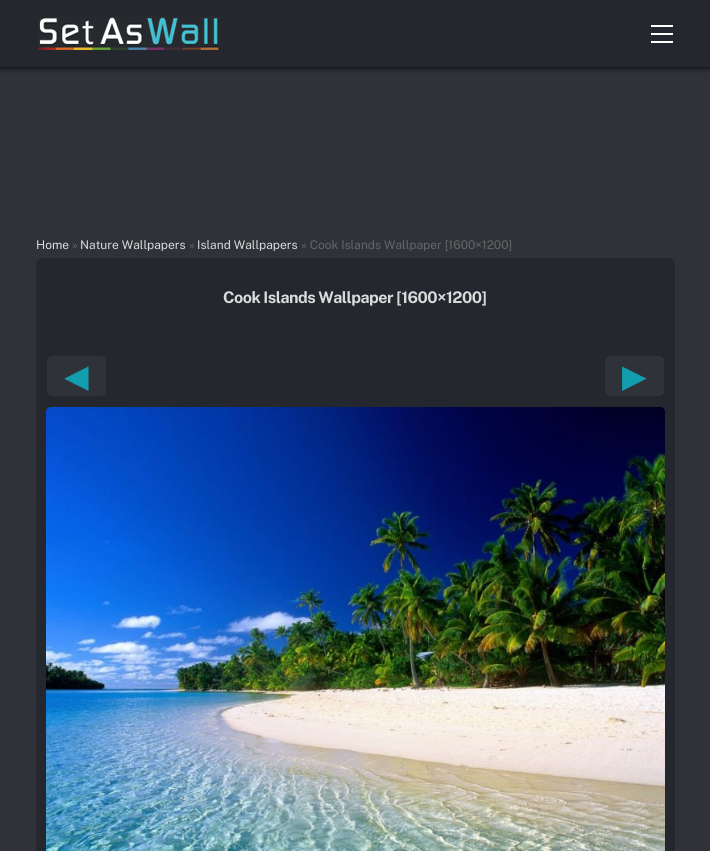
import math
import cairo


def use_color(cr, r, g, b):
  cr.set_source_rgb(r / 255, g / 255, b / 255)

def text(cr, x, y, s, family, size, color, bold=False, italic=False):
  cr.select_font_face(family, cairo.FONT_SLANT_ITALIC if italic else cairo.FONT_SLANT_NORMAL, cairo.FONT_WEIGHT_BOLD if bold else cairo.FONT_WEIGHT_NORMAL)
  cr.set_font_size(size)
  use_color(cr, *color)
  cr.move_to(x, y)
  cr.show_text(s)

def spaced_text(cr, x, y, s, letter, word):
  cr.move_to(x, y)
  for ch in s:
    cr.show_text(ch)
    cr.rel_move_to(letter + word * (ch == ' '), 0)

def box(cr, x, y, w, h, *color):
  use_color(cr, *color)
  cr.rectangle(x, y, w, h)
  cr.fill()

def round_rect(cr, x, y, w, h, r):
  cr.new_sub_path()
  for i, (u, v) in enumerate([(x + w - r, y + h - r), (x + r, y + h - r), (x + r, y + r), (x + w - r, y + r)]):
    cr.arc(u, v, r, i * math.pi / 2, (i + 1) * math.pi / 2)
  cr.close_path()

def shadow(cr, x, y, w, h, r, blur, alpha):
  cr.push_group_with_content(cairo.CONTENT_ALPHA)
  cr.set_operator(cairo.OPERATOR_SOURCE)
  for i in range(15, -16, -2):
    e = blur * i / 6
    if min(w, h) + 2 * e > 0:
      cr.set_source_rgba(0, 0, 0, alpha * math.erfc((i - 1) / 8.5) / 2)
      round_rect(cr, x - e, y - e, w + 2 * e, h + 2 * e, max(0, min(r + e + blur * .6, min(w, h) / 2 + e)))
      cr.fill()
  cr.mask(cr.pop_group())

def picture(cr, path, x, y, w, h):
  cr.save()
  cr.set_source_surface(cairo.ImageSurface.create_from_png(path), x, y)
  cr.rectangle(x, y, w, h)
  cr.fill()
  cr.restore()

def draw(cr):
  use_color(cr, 47, 50, 56)
  cr.paint()
  use_color(cr, 17, 17, 17)
  shadow(cr, 0, 2, 710, 67, 0, 2.5, 1)
  box(cr, 0, 0, 710, 66, 36, 39, 45)
  box(cr, 0, 66, 710, 1, 34, 37, 43)
  picture(cr, "img_01.png", 38, 16, 182, 34)
  box(cr, 651, 41, 22, 2, 255, 255, 255)
  box(cr, 651, 25, 22, 2, 255, 255, 255)
  box(cr, 651, 33, 22, 2, 255, 255, 255)
  use_color(cr, 36, 39, 45)
  round_rect(cr, 36, 258, 639, 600, 7)
  cr.fill()
  use_color(cr, 47, 50, 56)
  cr.new_path()
  cr.move_to(53, 356)
  cr.line_to(100, 356)
  cr.curve_to(103, 356, 106, 358, 106, 360)
  cr.line_to(106, 392)
  cr.curve_to(106, 394, 103, 396, 100, 396)
  cr.line_to(53, 396)
  cr.curve_to(50, 396, 47, 394, 47, 392)
  cr.line_to(47, 360)
  cr.curve_to(47, 358, 50, 356, 53, 356)
  cr.close_path()
  cr.fill()
  cr.new_path()
  cr.move_to(611, 356)
  cr.line_to(658, 356)
  cr.curve_to(661, 356, 664, 358, 664, 360)
  cr.line_to(664, 392)
  cr.curve_to(664, 394, 661, 396, 658, 396)
  cr.line_to(611, 396)
  cr.curve_to(608, 396, 605, 394, 605, 392)
  cr.line_to(605, 360)
  cr.curve_to(605, 358, 608, 356, 611, 356)
  cr.close_path()
  cr.fill()
  picture(cr, "img_02.png", 46, 407, 619, 444)
  text(cr, 36, 249, "Home", "Public Sans", 12, (219, 219, 219))
  text(cr, 72, 249, "»", "Public Sans", 12, (102, 102, 102))
  text(cr, 80, 249, "Nature Wallpapers", "Public Sans", 12, (219, 219, 219))
  text(cr, 189, 249, "»", "Public Sans", 12, (102, 102, 102))
  text(cr, 197, 249, "Island Wallpapers", "Public Sans", 12, (219, 219, 219))
  text(cr, 301, 249, "» Cook Islands Wallpaper [1600×1200]", "Public Sans", 12, (102, 102, 102))
  cr.select_font_face("Public Sans", cairo.FONT_SLANT_NORMAL, cairo.FONT_WEIGHT_BOLD)
  cr.set_font_size(16)
  use_color(cr, 219, 219, 219)
  spaced_text(cr, 223, 303, "Cook Islands Wallpaper [1600×1200]", -0.5, 0)
  text(cr, 64, 387, "◀", "DejaVu Sans", 32, (19, 158, 176))
  text(cr, 622, 387, "▶", "DejaVu Sans", 32, (19, 158, 176))


surface = cairo.ImageSurface(cairo.FORMAT_RGB24, 710, 851)
cr = cairo.Context(surface)
options = cairo.FontOptions()
options.set_hint_metrics(cairo.HINT_METRICS_OFF)
options.set_hint_style(cairo.HINT_STYLE_NONE)
cr.set_font_options(options)
cr.set_miter_limit(4)
draw(cr)
surface.write_to_png("out.png")
